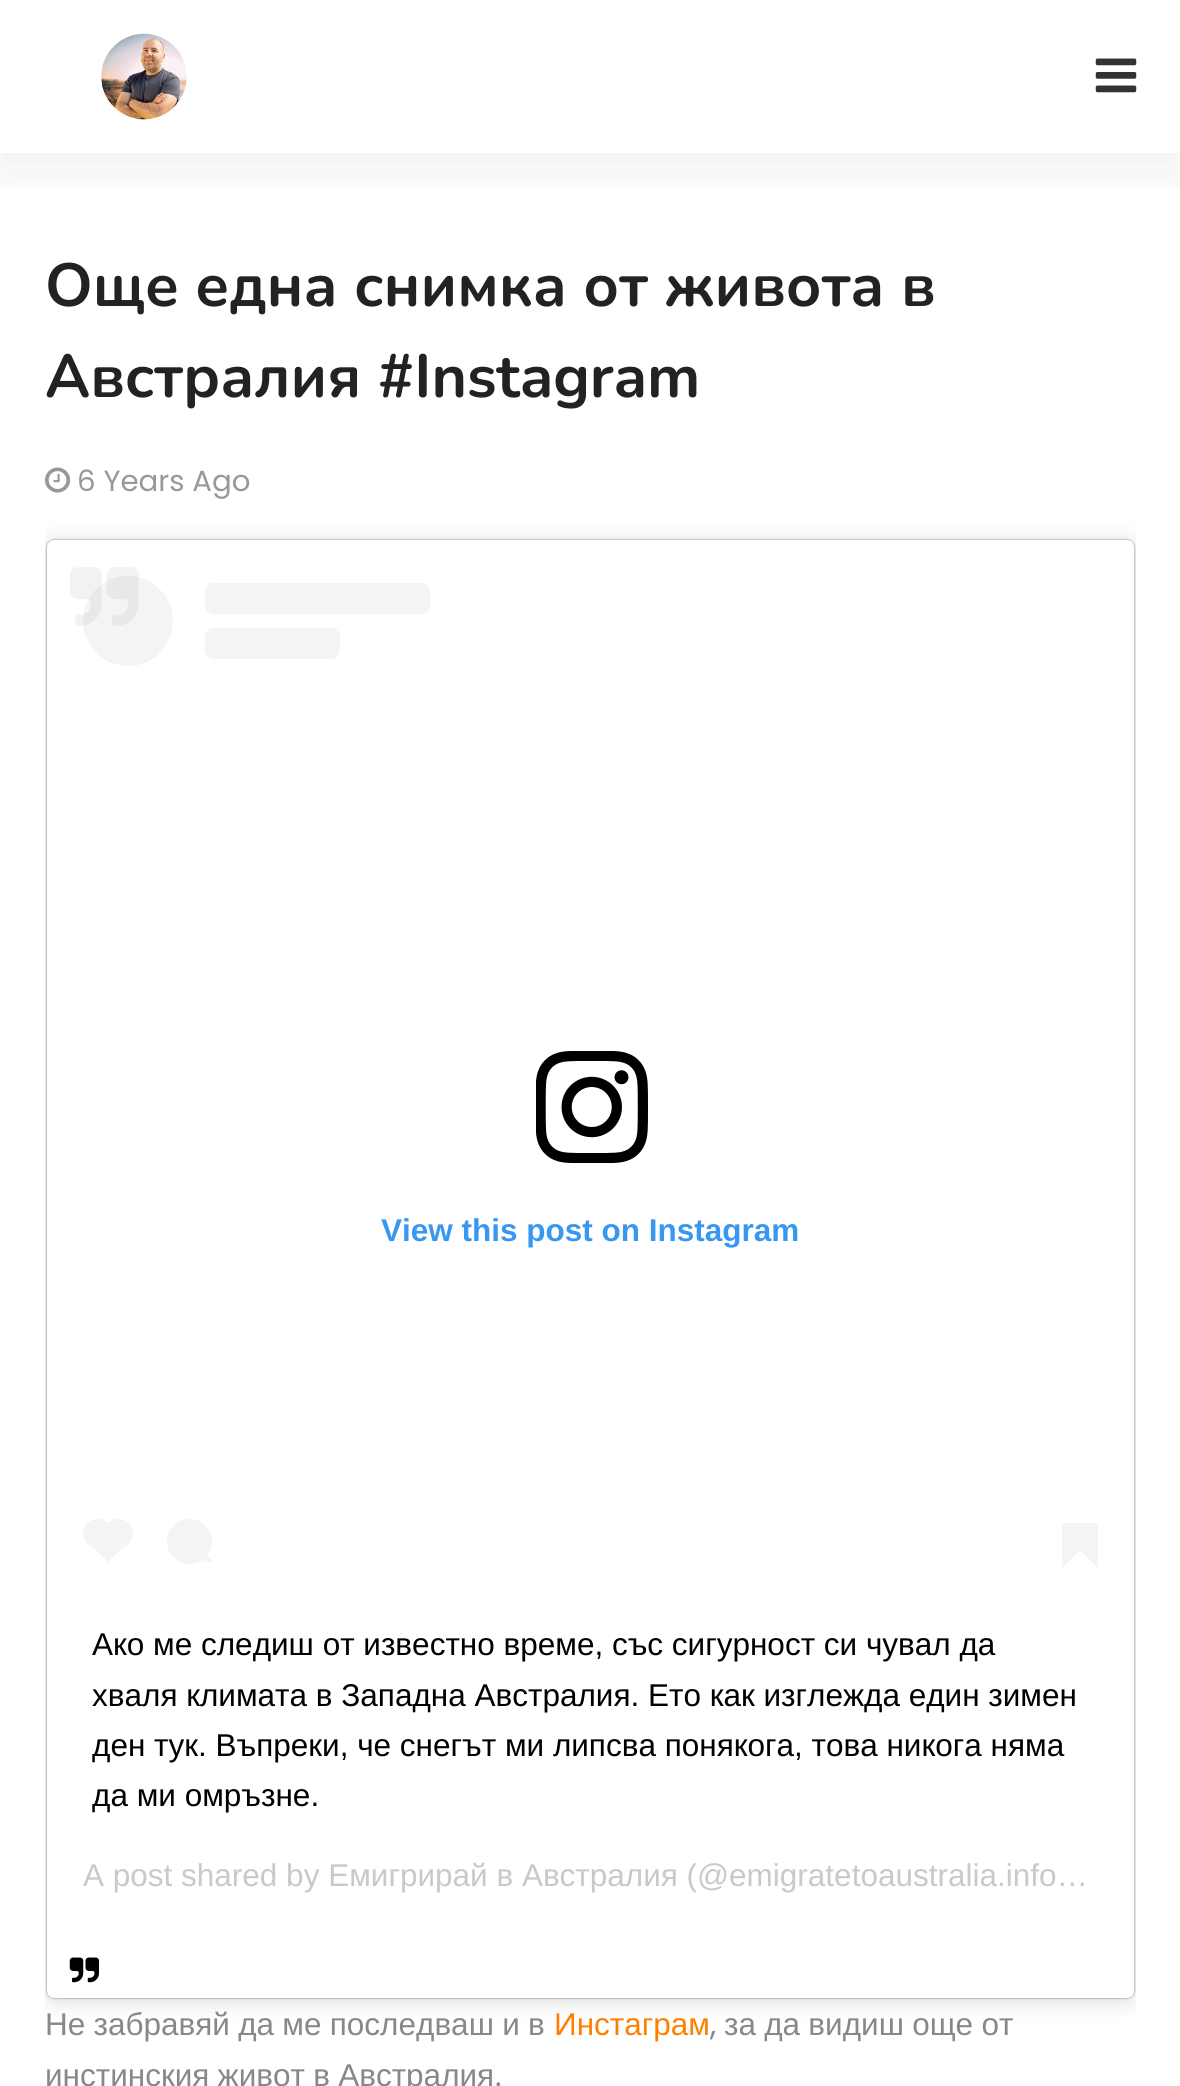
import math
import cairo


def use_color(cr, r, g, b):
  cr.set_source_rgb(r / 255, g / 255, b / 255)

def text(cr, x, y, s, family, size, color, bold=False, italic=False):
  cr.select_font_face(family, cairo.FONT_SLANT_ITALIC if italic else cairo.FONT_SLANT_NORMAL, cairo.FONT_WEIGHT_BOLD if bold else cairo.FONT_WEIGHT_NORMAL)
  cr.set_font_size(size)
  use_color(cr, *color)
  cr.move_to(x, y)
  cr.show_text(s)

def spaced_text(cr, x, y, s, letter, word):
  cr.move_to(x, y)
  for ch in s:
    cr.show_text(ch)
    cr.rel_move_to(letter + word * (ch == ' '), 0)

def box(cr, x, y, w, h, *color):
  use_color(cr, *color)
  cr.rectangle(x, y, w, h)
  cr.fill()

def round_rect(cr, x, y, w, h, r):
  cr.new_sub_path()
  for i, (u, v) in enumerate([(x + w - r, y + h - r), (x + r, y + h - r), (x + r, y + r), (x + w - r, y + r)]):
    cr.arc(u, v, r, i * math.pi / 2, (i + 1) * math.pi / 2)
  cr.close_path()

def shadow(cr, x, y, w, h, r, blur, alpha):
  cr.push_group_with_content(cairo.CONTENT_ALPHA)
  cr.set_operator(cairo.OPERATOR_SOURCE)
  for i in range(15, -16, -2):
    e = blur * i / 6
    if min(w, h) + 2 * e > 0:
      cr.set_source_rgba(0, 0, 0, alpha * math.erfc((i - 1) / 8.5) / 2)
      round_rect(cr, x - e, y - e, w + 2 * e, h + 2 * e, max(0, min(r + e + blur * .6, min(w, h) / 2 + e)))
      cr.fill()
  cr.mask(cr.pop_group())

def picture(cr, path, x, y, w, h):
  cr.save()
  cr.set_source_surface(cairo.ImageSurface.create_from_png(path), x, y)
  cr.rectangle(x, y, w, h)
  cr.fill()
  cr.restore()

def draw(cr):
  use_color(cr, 255, 255, 255)
  cr.paint()
  cr.save()
  cr.rectangle(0, 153, 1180, 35)
  cr.clip()
  use_color(cr, 0, 0, 0)
  shadow(cr, 0, 5, 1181, 153, 0, 45, 0.08)
  cr.restore()
  picture(cr, "img_01.png", 101, 33, 86, 87)
  picture(cr, "img_02.png", 1095, 58, 42, 35)
  picture(cr, "img_03.png", 45, 467, 26, 26)
  cr.save()
  cr.rectangle(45, 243, 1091, 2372)
  cr.clip()
  use_color(cr, 0, 0, 0)
  shadow(cr, 47, 542, 1087, 1458, 7, 11, 0.15)
  cr.restore()
  use_color(cr, 0, 0, 0)
  shadow(cr, 47, 540, 1087, 1458, 7, 1, 0.5)
  use_color(cr, 255, 255, 255)
  round_rect(cr, 47, 540, 1087, 1458, 7)
  cr.fill()
  use_color(cr, 244, 244, 244)
  cr.arc(128, 621, 45, 0, 2 * math.pi)
  cr.fill()
  picture(cr, "img_04.png", 70, 567, 69, 59)
  round_rect(cr, 205, 583, 225, 31, 9)
  cr.fill()
  round_rect(cr, 205, 628, 135, 31, 9)
  cr.fill()
  picture(cr, "img_05.png", 536, 1051, 112, 112)
  round_rect(cr, 83, 1519, 30, 29, 14.5)
  cr.fill()
  cr.new_path()
  cr.move_to(88.5, 1542.5)
  cr.line_to(108, 1522.5)
  cr.line_to(128, 1542.5)
  cr.line_to(108, 1562)
  cr.close_path()
  cr.fill()
  cr.arc(118.5, 1533.5, 14.5, 0, 2 * math.pi)
  cr.fill()
  cr.arc(189.5, 1541.5, 22.5, 0, 2 * math.pi)
  cr.fill()
  cr.new_path()
  cr.move_to(200, 1559.5)
  cr.line_to(204.5, 1551.5)
  cr.line_to(214, 1562.5)
  cr.close_path()
  cr.fill()
  box(cr, 1062, 1523, 36, 27, 244, 244, 244)
  cr.new_path()
  cr.move_to(1062, 1550)
  cr.line_to(1080, 1550)
  cr.line_to(1062, 1568)
  cr.close_path()
  cr.fill()
  cr.new_path()
  cr.move_to(1080, 1550)
  cr.line_to(1098, 1550)
  cr.line_to(1098, 1568)
  cr.close_path()
  cr.fill()
  picture(cr, "img_06.png", 69, 1957, 30, 26)
  text(cr, 45, 306, "Още една снимка от живота в", "Nunito", 60.75, (34, 34, 34), bold=True)
  text(cr, 45, 397, "Австралия #Instagram", "Nunito", 60.75, (34, 34, 34), bold=True)
  text(cr, 77, 491, "6 Years Ago", "Poppins", 29.25, (152, 152, 152))
  text(cr, 381, 1241, "View this post on Instagram", "Liberation Sans", 31.5, (56, 151, 240), bold=True)
  text(cr, 92, 1655, "Ако ме следиш от известно време, със сигурност си чувал да", "Liberation Sans", 31.5, (0, 0, 0))
  text(cr, 92, 1706, "хваля климата в Западна Австралия. Ето как изглежда един зимен", "Liberation Sans", 31.5, (0, 0, 0))
  text(cr, 92, 1756, "ден тук. Въпреки, че снегът ми липсва понякога, това никога няма", "Liberation Sans", 31.5, (0, 0, 0))
  text(cr, 92, 1806, "да ми омръзне.", "Liberation Sans", 31.5, (0, 0, 0))
  text(cr, 83, 1886, "A post shared by Емигрирай в Австралия (@emigratetoaustralia.info…", "Liberation Sans", 31.5, (201, 200, 205))
  use_color(cr, 136, 136, 136)
  spaced_text(cr, 45, 2035, "Не забравяй да ме последваш и в", 0, -0.5)
  text(cr, 554, 2035, "Инстаграм", "Liberation Sans", 31.5, (255, 128, 0))
  text(cr, 710, 2035, ",", "Poppins", 31.5, (136, 136, 136))
  cr.select_font_face("Liberation Sans")
  spaced_text(cr, 724, 2035, "за да видиш още от", 0, -0.5)
  spaced_text(cr, 45, 2086, "инстинския живот в Австралия", 0, -0.5)
  text(cr, 495, 2086, ".", "Poppins", 31.5, (136, 136, 136))


surface = cairo.ImageSurface(cairo.FORMAT_RGB24, 1180, 2086)
cr = cairo.Context(surface)
options = cairo.FontOptions()
options.set_hint_metrics(cairo.HINT_METRICS_OFF)
options.set_hint_style(cairo.HINT_STYLE_NONE)
cr.set_font_options(options)
cr.set_miter_limit(4)
draw(cr)
surface.write_to_png("out.png")
